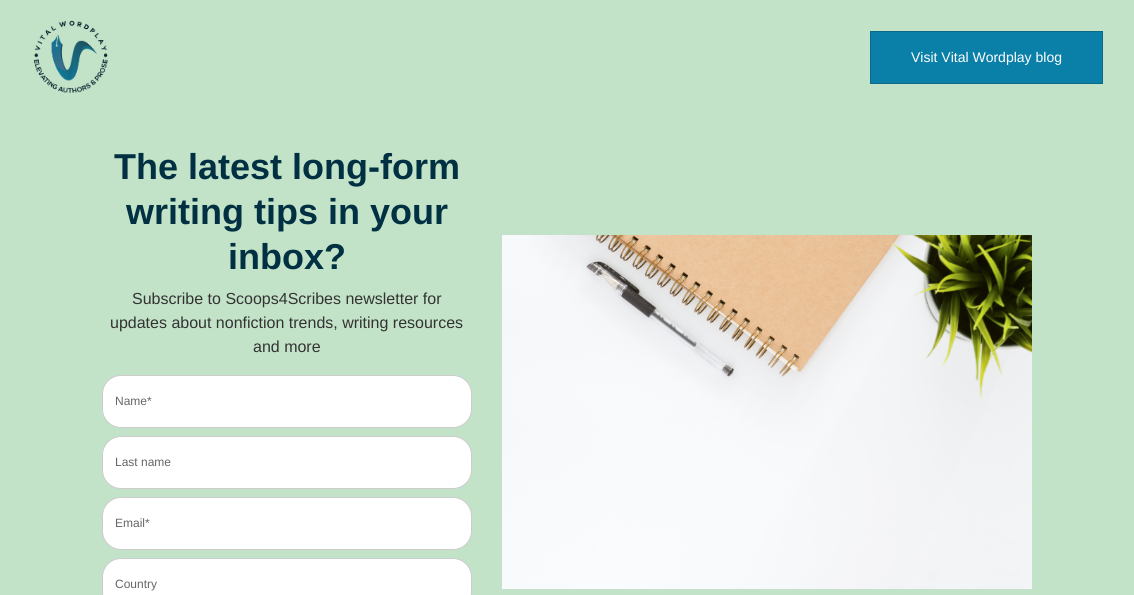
import math
import cairo


def use_color(cr, r, g, b):
  cr.set_source_rgb(r / 255, g / 255, b / 255)

def text(cr, x, y, s, family, size, color, bold=False, italic=False):
  cr.select_font_face(family, cairo.FONT_SLANT_ITALIC if italic else cairo.FONT_SLANT_NORMAL, cairo.FONT_WEIGHT_BOLD if bold else cairo.FONT_WEIGHT_NORMAL)
  cr.set_font_size(size)
  use_color(cr, *color)
  cr.move_to(x, y)
  cr.show_text(s)

def round_rect(cr, x, y, w, h, r):
  cr.new_sub_path()
  for i, (u, v) in enumerate([(x + w - r, y + h - r), (x + r, y + h - r), (x + r, y + r), (x + w - r, y + r)]):
    cr.arc(u, v, r, i * math.pi / 2, (i + 1) * math.pi / 2)
  cr.close_path()

def picture(cr, path, x, y, w, h):
  cr.save()
  cr.set_source_surface(cairo.ImageSurface.create_from_png(path), x, y)
  cr.rectangle(x, y, w, h)
  cr.fill()
  cr.restore()

def draw(cr):
  use_color(cr, 195, 227, 200)
  cr.paint()
  picture(cr, "img_01.png", 33, 20, 75, 73)
  use_color(cr, 10, 127, 167)
  cr.rectangle(870.5, 31.5, 232, 52)
  cr.fill_preserve()
  use_color(cr, 13, 105, 135)
  cr.set_line_width(1)
  cr.stroke()
  use_color(cr, 255, 255, 255)
  round_rect(cr, 102.5, 375.5, 369, 52, 18.5)
  cr.fill_preserve()
  use_color(cr, 204, 204, 204)
  cr.stroke()
  use_color(cr, 255, 255, 255)
  round_rect(cr, 102.5, 436.5, 369, 52, 18.5)
  cr.fill_preserve()
  use_color(cr, 204, 204, 204)
  cr.stroke()
  use_color(cr, 255, 255, 255)
  round_rect(cr, 102.5, 497.5, 369, 52, 18.5)
  cr.fill_preserve()
  use_color(cr, 204, 204, 204)
  cr.stroke()
  use_color(cr, 255, 255, 255)
  round_rect(cr, 102.5, 558.5, 369, 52, 18.5)
  cr.fill_preserve()
  use_color(cr, 204, 204, 204)
  cr.stroke()
  picture(cr, "img_02.png", 502, 235, 530, 354)
  text(cr, 911, 62, "Visit Vital Wordplay blog", "Liberation Sans", 14, (255, 255, 255))
  text(cr, 114, 179, "The latest long-form", "Liberation Sans", 36, (1, 48, 66), bold=True)
  text(cr, 126, 224, "writing tips in your", "Liberation Sans", 36, (1, 48, 66), bold=True)
  text(cr, 228, 269, "inbox?", "Liberation Sans", 36, (1, 48, 66), bold=True)
  text(cr, 132, 304, "Subscribe to Scoops4Scribes newsletter for", "Liberation Sans", 16, (51, 51, 51))
  text(cr, 110, 328, "updates about nonfiction trends, writing resources", "Liberation Sans", 16, (51, 51, 51))
  text(cr, 253, 352, "and more", "Liberation Sans", 16, (51, 51, 51))
  text(cr, 115, 405, "Name*", "Liberation Sans", 12, (102, 102, 102))
  text(cr, 115, 466, "Last name", "Liberation Sans", 12, (102, 102, 102))
  text(cr, 115, 527, "Email*", "Liberation Sans", 12, (102, 102, 102))
  text(cr, 115, 588, "Country", "Liberation Sans", 12, (102, 102, 102))


surface = cairo.ImageSurface(cairo.FORMAT_RGB24, 1134, 595)
cr = cairo.Context(surface)
options = cairo.FontOptions()
options.set_hint_metrics(cairo.HINT_METRICS_OFF)
options.set_hint_style(cairo.HINT_STYLE_NONE)
cr.set_font_options(options)
cr.set_miter_limit(4)
draw(cr)
surface.write_to_png("out.png")
